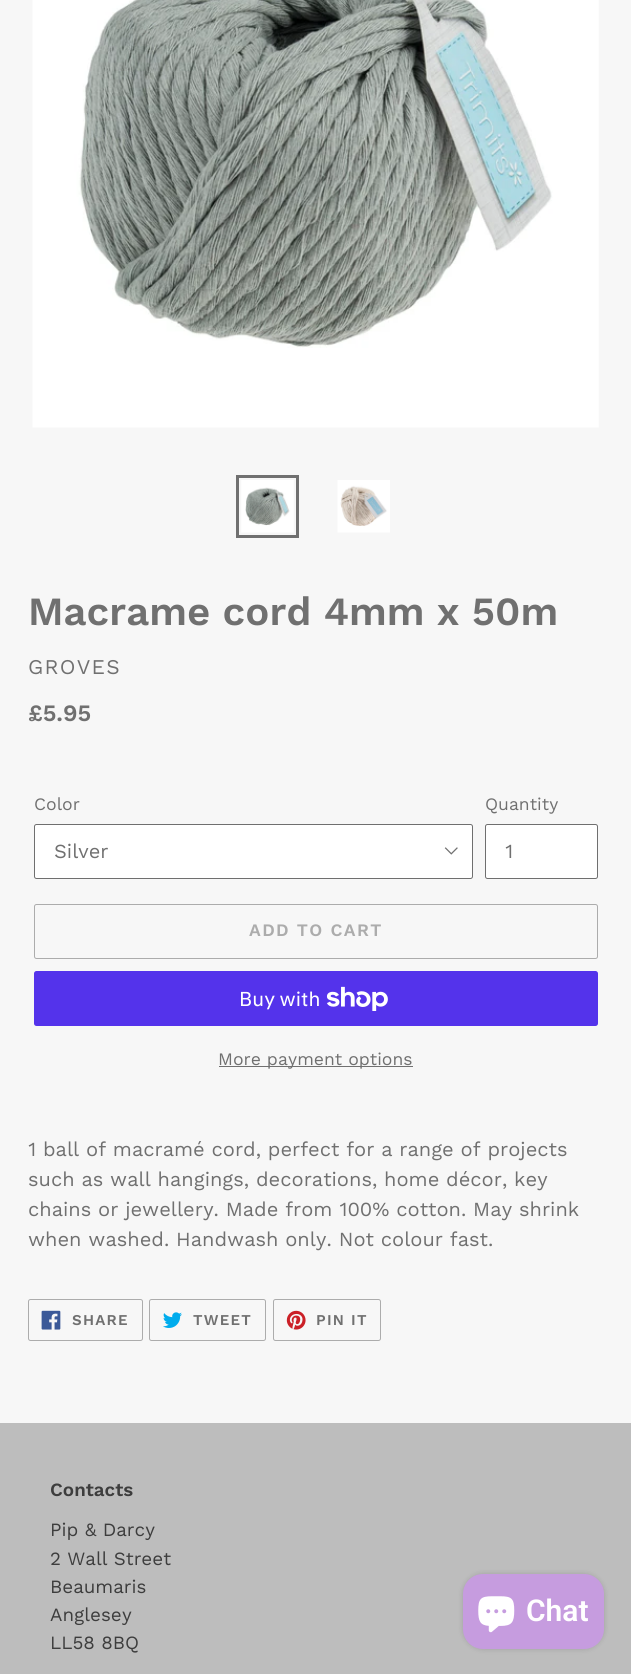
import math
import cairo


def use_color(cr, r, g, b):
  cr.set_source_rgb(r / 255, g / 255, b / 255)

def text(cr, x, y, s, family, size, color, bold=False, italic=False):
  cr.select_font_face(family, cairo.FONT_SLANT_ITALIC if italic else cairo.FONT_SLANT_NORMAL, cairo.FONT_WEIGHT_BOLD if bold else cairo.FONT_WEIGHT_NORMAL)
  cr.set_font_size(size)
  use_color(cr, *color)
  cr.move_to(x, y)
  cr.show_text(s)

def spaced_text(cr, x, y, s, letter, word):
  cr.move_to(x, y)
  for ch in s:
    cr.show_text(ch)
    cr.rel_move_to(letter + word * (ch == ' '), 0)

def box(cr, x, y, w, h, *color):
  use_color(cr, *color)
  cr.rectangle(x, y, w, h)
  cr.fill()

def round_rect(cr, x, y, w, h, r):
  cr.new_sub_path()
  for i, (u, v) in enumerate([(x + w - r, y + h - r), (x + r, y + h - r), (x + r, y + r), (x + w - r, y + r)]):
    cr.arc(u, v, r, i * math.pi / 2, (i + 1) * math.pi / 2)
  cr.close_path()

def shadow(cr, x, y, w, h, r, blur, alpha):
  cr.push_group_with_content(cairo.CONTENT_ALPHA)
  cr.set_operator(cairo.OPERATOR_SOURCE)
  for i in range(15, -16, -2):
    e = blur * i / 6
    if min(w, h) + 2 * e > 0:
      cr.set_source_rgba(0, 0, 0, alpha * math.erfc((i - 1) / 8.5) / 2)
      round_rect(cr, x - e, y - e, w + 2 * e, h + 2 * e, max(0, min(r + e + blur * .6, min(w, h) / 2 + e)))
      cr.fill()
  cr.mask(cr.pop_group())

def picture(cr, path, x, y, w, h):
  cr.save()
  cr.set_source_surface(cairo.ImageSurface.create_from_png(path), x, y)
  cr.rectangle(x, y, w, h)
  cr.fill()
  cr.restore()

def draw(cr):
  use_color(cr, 247, 247, 247)
  cr.paint()
  picture(cr, "img_01.png", 32, 0, 567, 428)
  cr.rectangle(237.5, 476.5, 60, 60)
  use_color(cr, 112, 112, 112)
  cr.set_line_width(3)
  cr.stroke()
  picture(cr, "img_02.png", 241, 480, 53, 53)
  picture(cr, "img_03.png", 337, 480, 53, 53)
  use_color(cr, 255, 255, 255)
  round_rect(cr, 34, 824, 439, 55, 2.5)
  cr.fill()
  picture(cr, "img_04.png", 444, 847, 14, 8)
  round_rect(cr, 34.5, 824.5, 438, 54, 2)
  use_color(cr, 111, 111, 111)
  cr.set_line_width(1)
  cr.stroke()
  use_color(cr, 255, 255, 255)
  round_rect(cr, 485.5, 824.5, 112, 54, 2)
  cr.fill_preserve()
  use_color(cr, 111, 111, 111)
  cr.stroke()
  round_rect(cr, 34.5, 904.5, 563, 54, 2)
  use_color(cr, 172, 172, 172)
  cr.stroke()
  use_color(cr, 84, 51, 235)
  round_rect(cr, 34, 971, 564, 55, 2.5)
  cr.fill()
  picture(cr, "img_05.png", 326, 986, 62, 25)
  box(cr, 219, 1066, 194, 1, 112, 112, 112)
  round_rect(cr, 28.5, 1299.5, 114, 41, 2)
  use_color(cr, 172, 172, 172)
  cr.stroke()
  picture(cr, "img_06.png", 41, 1310, 20, 20)
  round_rect(cr, 149.5, 1299.5, 116, 41, 2)
  cr.stroke()
  picture(cr, "img_07.png", 163, 1312, 19, 16)
  round_rect(cr, 273.5, 1299.5, 107, 41, 2)
  cr.stroke()
  picture(cr, "img_08.png", 286, 1310, 20, 20)
  box(cr, 0, 1423, 631, 251, 189, 189, 189)
  use_color(cr, 0, 0, 0)
  shadow(cr, 463, 1574, 141, 75, 20, 3, 0.15)
  use_color(cr, 198, 156, 223)
  round_rect(cr, 463, 1574, 141, 75, 20)
  cr.fill()
  picture(cr, "img_09.png", 478, 1596, 37, 37)
  text(cr, 28, 625, "Macrame cord 4mm x 50m", "Work Sans SemiBold", 40, (112, 112, 112))
  cr.select_font_face("Work Sans")
  cr.set_font_size(21)
  spaced_text(cr, 28, 674, "GROVES", 1.25, 0)
  text(cr, 28, 721, "£5.95", "Work Sans SemiBold", 23.5, (112, 112, 112))
  text(cr, 34, 810, "Color", "Work Sans", 17.5, (112, 112, 112))
  text(cr, 54, 858, "Silver", "Work Sans", 20, (112, 112, 112))
  text(cr, 485, 810, "Quantity", "Work Sans", 17.5, (112, 112, 112))
  text(cr, 505, 858, "1", "Work Sans", 20, (112, 112, 112))
  cr.select_font_face("Work Sans SemiBold")
  cr.set_font_size(17.5)
  use_color(cr, 172, 172, 172)
  spaced_text(cr, 249, 936, "ADD TO CART", 1.4, 0)
  text(cr, 239, 1006, "Buy with", "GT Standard", 20, (255, 255, 255))
  text(cr, 218, 1065, "More payment options", "Work Sans", 17.5, (112, 112, 112))
  text(cr, 28, 1156, "1 ball of macramé cord, perfect for a range of projects", "Work Sans", 20, (112, 112, 112))
  text(cr, 28, 1186, "such as wall hangings, decorations, home décor, key", "Work Sans", 20, (112, 112, 112))
  text(cr, 28, 1216, "chains or jewellery. Made from 100% cotton. May shrink", "Work Sans", 20, (112, 112, 112))
  text(cr, 28, 1246, "when washed. Handwash only. Not colour fast.", "Work Sans", 20, (112, 112, 112))
  cr.select_font_face("Work Sans SemiBold")
  cr.set_font_size(15)
  spaced_text(cr, 72, 1325, "SHARE", 1.25, 0)
  spaced_text(cr, 193, 1325, "TWEET", 1.25, 0)
  spaced_text(cr, 316, 1325, "PIN IT", 1.25, 0)
  text(cr, 50, 1496, "Contacts", "Work Sans SemiBold", 18.75, (61, 61, 61))
  text(cr, 50, 1536, "Pip & Darcy", "Work Sans", 18.75, (61, 61, 61))
  text(cr, 50, 1565, "2 Wall Street", "Work Sans", 18.75, (61, 61, 61))
  text(cr, 50, 1593, "Beaumaris", "Work Sans", 18.75, (61, 61, 61))
  text(cr, 50, 1621, "Anglesey", "Work Sans", 18.75, (61, 61, 61))
  text(cr, 50, 1649, "LL58 8BQ", "Work Sans", 18.75, (61, 61, 61))
  text(cr, 526, 1621, "Chat", "Roboto SemiBold", 30, (255, 255, 255))


surface = cairo.ImageSurface(cairo.FORMAT_RGB24, 631, 1674)
cr = cairo.Context(surface)
options = cairo.FontOptions()
options.set_hint_metrics(cairo.HINT_METRICS_OFF)
options.set_hint_style(cairo.HINT_STYLE_NONE)
cr.set_font_options(options)
cr.set_miter_limit(4)
draw(cr)
surface.write_to_png("out.png")
